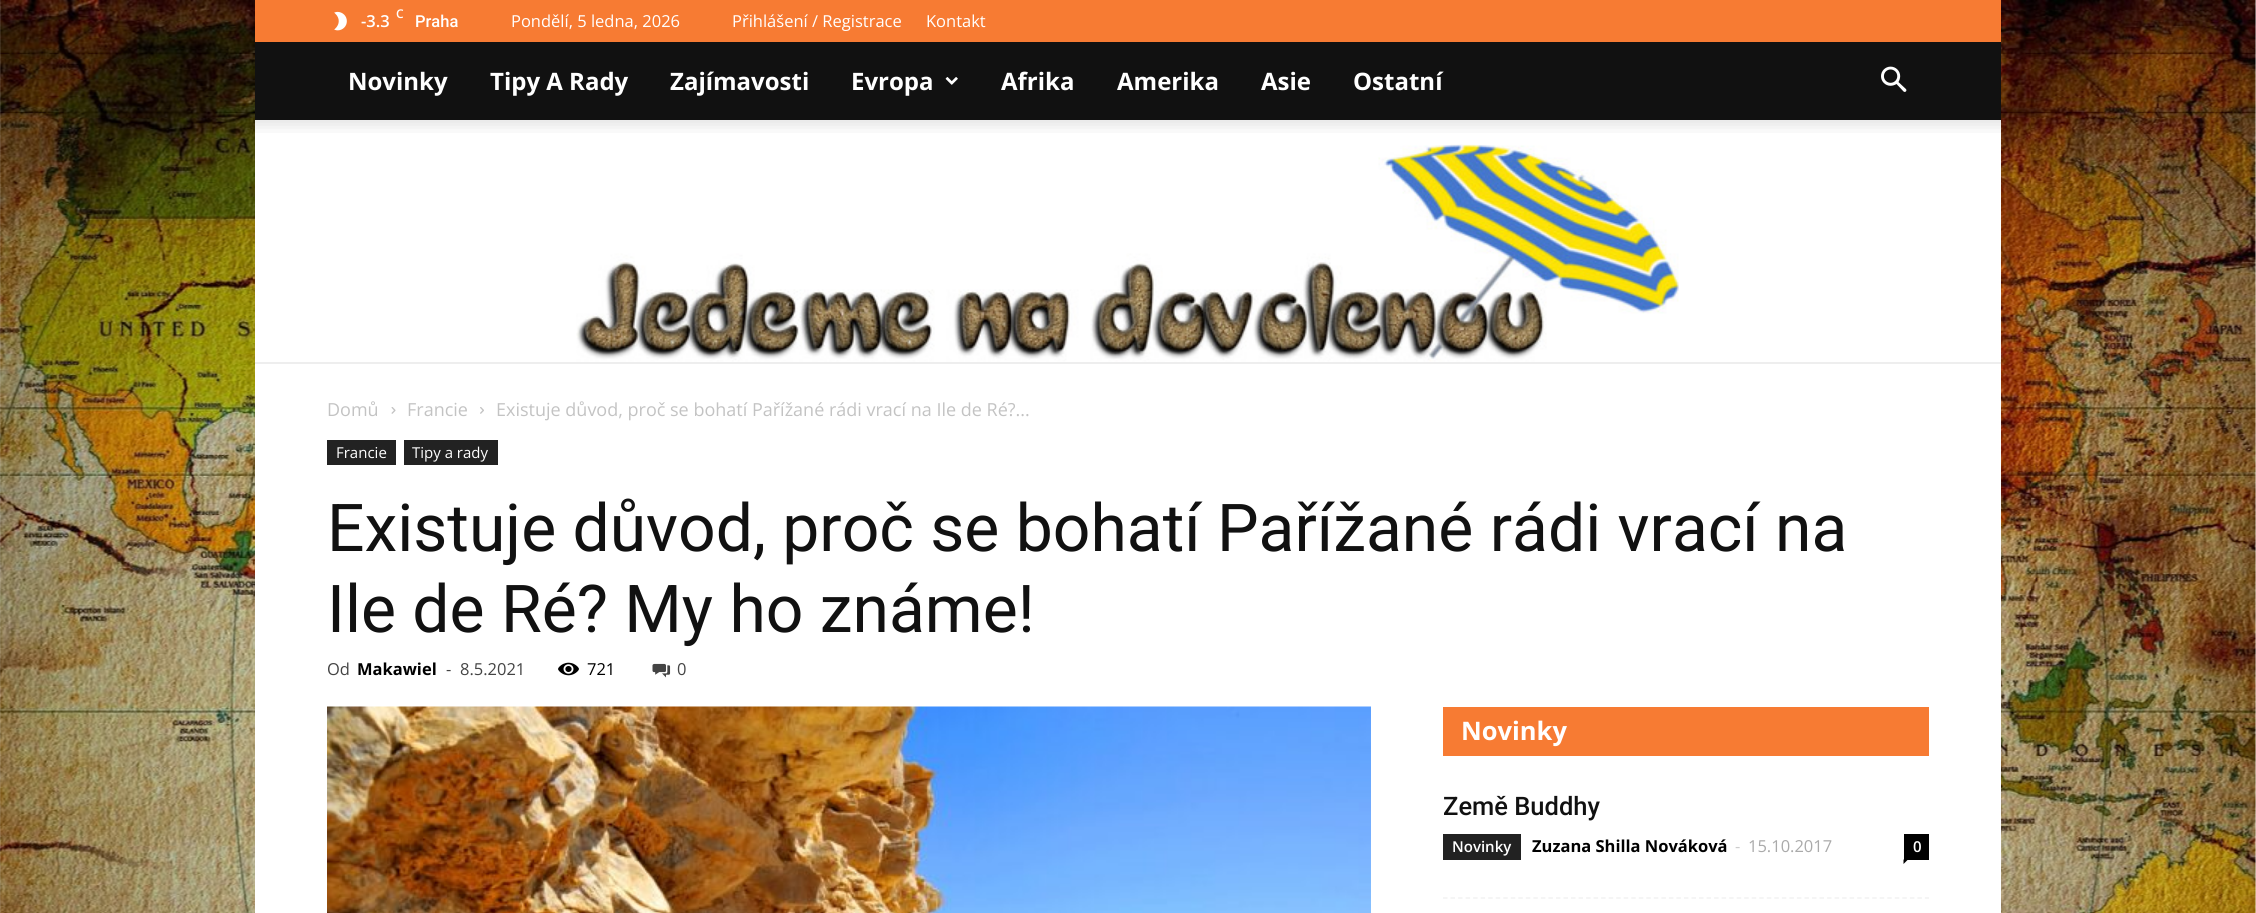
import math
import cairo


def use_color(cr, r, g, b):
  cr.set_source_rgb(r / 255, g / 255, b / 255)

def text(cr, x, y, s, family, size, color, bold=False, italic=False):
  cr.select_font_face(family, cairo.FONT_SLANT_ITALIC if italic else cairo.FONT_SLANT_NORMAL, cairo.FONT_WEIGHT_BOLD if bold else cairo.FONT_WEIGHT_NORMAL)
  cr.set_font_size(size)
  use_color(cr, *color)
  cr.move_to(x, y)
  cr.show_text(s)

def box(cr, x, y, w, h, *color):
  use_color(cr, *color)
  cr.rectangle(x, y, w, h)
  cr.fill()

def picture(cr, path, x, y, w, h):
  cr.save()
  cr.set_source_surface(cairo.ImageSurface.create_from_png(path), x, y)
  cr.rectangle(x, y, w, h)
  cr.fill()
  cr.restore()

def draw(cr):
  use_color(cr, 255, 255, 255)
  cr.paint()
  picture(cr, "img_01.png", 0, 0, 2256, 913)
  box(cr, 255, 0, 1746, 42, 247, 123, 51)
  picture(cr, "img_02.png", 334, 11, 13, 20)
  box(cr, 255, 42, 1746, 78, 17, 17, 17)
  picture(cr, "img_03.png", 945, 77, 13, 8)
  picture(cr, "img_04.png", 1881, 66, 26, 26)
  box(cr, 255, 120, 1746, 242, 255, 255, 255)
  picture(cr, "img_05.png", 255, 120, 1746, 13)
  box(cr, 255, 362, 1746, 2, 238, 238, 238)
  picture(cr, "img_06.png", 576, 144, 1103, 218)
  box(cr, 255, 364, 1746, 549, 255, 255, 255)
  picture(cr, "img_07.png", 391, 407, 5, 7)
  picture(cr, "img_08.png", 480, 407, 4, 7)
  box(cr, 327, 440, 69, 25, 34, 34, 34)
  box(cr, 404, 440, 94, 25, 34, 34, 34)
  picture(cr, "img_09.png", 558, 662, 21, 14)
  picture(cr, "img_10.png", 652, 663, 19, 15)
  picture(cr, "img_11.png", 327, 706, 1044, 207)
  box(cr, 1443, 707, 486, 49, 247, 123, 51)
  cr.new_path()
  cr.move_to(1443, 898)
  cr.line_to(1929, 898)
  use_color(cr, 242, 242, 242)
  cr.set_line_width(1.5)
  cr.set_dash([4.5, 3.03])
  cr.stroke()
  box(cr, 1443, 834, 78, 26, 34, 34, 34)
  box(cr, 1904, 834, 25, 26, 0, 0, 0)
  cr.new_path()
  cr.move_to(1903.5, 859.5)
  cr.line_to(1908, 859.5)
  cr.line_to(1903.5, 864)
  cr.close_path()
  cr.fill()
  text(cr, 396, 18, "C", "Open Sans SemiBold", 12, (255, 255, 255))
  text(cr, 361, 27, "-3.3", "Open Sans SemiBold", 16.5, (255, 255, 255))
  text(cr, 415, 27, "Praha", "Roboto Medium", 16.5, (255, 255, 255))
  text(cr, 511, 27, "Pondělí, 5 ledna, 2026", "Open Sans", 16.5, (255, 255, 255))
  text(cr, 732, 27, "Přihlášení / Registrace", "Open Sans", 16.5, (255, 255, 255))
  text(cr, 926, 27, "Kontakt", "Open Sans", 16.5, (255, 255, 255))
  text(cr, 348, 90, "Novinky", "Open Sans", 24, (255, 255, 255), bold=True)
  text(cr, 490, 90, "Tipy A Rady", "Open Sans", 24, (255, 255, 255), bold=True)
  text(cr, 670, 90, "Zajímavosti", "Open Sans", 24, (255, 255, 255), bold=True)
  text(cr, 851, 90, "Evropa", "Open Sans", 24, (255, 255, 255), bold=True)
  text(cr, 1001, 90, "Afrika", "Open Sans", 24, (255, 255, 255), bold=True)
  text(cr, 1117, 90, "Amerika", "Open Sans", 24, (255, 255, 255), bold=True)
  text(cr, 1261, 90, "Asie", "Open Sans", 24, (255, 255, 255), bold=True)
  text(cr, 1353, 90, "Ostatní", "Open Sans", 24, (255, 255, 255), bold=True)
  text(cr, 327, 416, "Domů", "Open Sans", 18, (195, 195, 195))
  text(cr, 407, 416, "Francie", "Open Sans", 18, (195, 195, 195))
  text(cr, 496, 416, "Existuje důvod, proč se bohatí Pařížané rádi vrací na Ile de Ré?...", "Open Sans", 18, (195, 195, 195))
  text(cr, 336, 458, "Francie", "Open Sans", 15, (255, 255, 255))
  text(cr, 412, 458, "Tipy a rady", "Open Sans", 15, (255, 255, 255))
  text(cr, 327, 551, "Existuje důvod, proč se bohatí Pařížané rádi vrací na", "Roboto", 66, (17, 17, 17))
  text(cr, 327, 632, "Ile de Ré? My ho známe!", "Roboto", 66, (17, 17, 17))
  text(cr, 327, 675, "Od", "Open Sans", 16.5, (68, 68, 68))
  text(cr, 357, 675, "Makawiel", "Open Sans", 16.5, (0, 0, 0), bold=True)
  text(cr, 446, 675, "-", "Open Sans", 16.5, (68, 68, 68))
  text(cr, 460, 675, "8.5.2021", "Open Sans", 16.5, (68, 68, 68))
  text(cr, 587, 675, "721", "Open Sans", 16.5, (0, 0, 0))
  text(cr, 677, 675, "0", "Open Sans", 16.5, (68, 68, 68))
  text(cr, 1461, 740, "Novinky", "Open Sans", 25.5, (255, 255, 255), bold=True)
  text(cr, 1443, 815, "Země Buddhy", "Roboto Medium", 25.5, (17, 17, 17))
  text(cr, 1452, 852, "Novinky", "Open Sans SemiBold", 15, (255, 255, 255))
  text(cr, 1532, 852, "Zuzana Shilla Nováková", "Open Sans", 16.5, (0, 0, 0), bold=True)
  text(cr, 1735, 852, "-", "Open Sans", 16.5, (204, 204, 204))
  text(cr, 1748, 852, "15.10.2017", "Open Sans", 16.5, (170, 170, 170))
  text(cr, 1913, 852, "0", "Open Sans SemiBold", 15, (255, 255, 255))


surface = cairo.ImageSurface(cairo.FORMAT_RGB24, 2256, 913)
cr = cairo.Context(surface)
options = cairo.FontOptions()
options.set_hint_metrics(cairo.HINT_METRICS_OFF)
options.set_hint_style(cairo.HINT_STYLE_NONE)
cr.set_font_options(options)
cr.set_miter_limit(4)
draw(cr)
surface.write_to_png("out.png")
